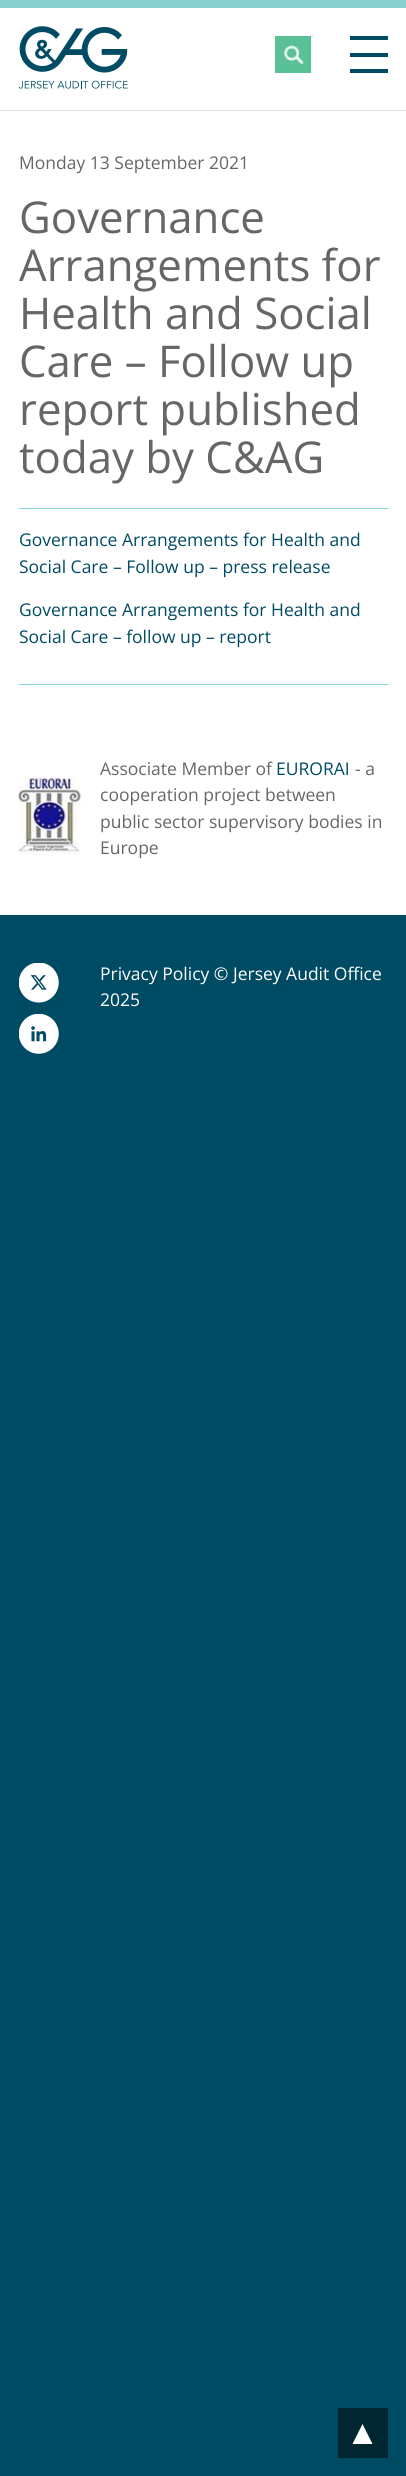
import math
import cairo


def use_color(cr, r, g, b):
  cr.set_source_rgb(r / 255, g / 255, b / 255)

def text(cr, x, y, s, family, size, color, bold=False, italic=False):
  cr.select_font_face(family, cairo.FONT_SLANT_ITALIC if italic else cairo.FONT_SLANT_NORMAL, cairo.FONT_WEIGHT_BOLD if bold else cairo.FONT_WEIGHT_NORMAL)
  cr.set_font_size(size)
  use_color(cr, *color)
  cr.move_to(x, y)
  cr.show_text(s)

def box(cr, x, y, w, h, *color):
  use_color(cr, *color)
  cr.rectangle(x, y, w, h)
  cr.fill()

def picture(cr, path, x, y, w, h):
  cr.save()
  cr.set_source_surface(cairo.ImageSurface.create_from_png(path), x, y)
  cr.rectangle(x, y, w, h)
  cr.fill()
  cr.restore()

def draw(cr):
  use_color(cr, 0, 75, 100)
  cr.paint()
  box(cr, 0, 8, 406, 907, 255, 255, 255)
  box(cr, 0, 0, 406, 8, 136, 209, 207)
  picture(cr, "img_01.png", 19, 26, 109, 63)
  box(cr, 310, 35, 3, 3, 224, 236, 225)
  box(cr, 275, 36, 36, 37, 90, 192, 152)
  picture(cr, "img_02.png", 283, 45, 21, 19)
  box(cr, 350, 53, 38, 4, 0, 75, 100)
  box(cr, 350, 36, 38, 4, 0, 75, 100)
  box(cr, 350, 69, 38, 4, 0, 75, 100)
  box(cr, 0, 110, 406, 1, 229, 229, 229)
  box(cr, 19, 508, 369, 1, 136, 209, 207)
  box(cr, 19, 684, 369, 1, 136, 209, 207)
  picture(cr, "img_03.png", 18, 777, 64, 78)
  picture(cr, "img_04.png", 19, 963, 40, 40)
  picture(cr, "img_05.png", 19, 1014, 40, 40)
  box(cr, 338, 2408, 50, 50, 0, 38, 50)
  use_color(cr, 255, 255, 255)
  cr.set_fill_rule(cairo.FILL_RULE_EVEN_ODD)
  cr.new_path()
  cr.move_to(362.5, 2424)
  cr.line_to(372.5, 2444)
  cr.line_to(352.5, 2444)
  cr.close_path()
  cr.fill()
  text(cr, 19, 169, "Monday 13 September 2021", "Open Sans", 17.5, (102, 102, 102))
  text(cr, 19, 233, "Governance", "Open Sans", 43.75, (102, 102, 102))
  text(cr, 19, 281, "Arrangements for", "Open Sans", 43.75, (102, 102, 102))
  text(cr, 19, 329, "Health and Social", "Open Sans", 43.75, (102, 102, 102))
  text(cr, 19, 377, "Care – Follow up", "Open Sans", 43.75, (102, 102, 102))
  text(cr, 19, 425, "report published", "Open Sans", 43.75, (102, 102, 102))
  text(cr, 19, 473, "today by C&AG", "Open Sans", 43.75, (102, 102, 102))
  text(cr, 19, 546, "Governance Arrangements for Health and", "Open Sans", 17.5, (0, 75, 100))
  text(cr, 19, 573, "Social Care – Follow up – press release", "Open Sans", 17.5, (0, 75, 100))
  text(cr, 19, 616, "Governance Arrangements for Health and", "Open Sans", 17.5, (0, 75, 100))
  text(cr, 19, 643, "Social Care – follow up – report", "Open Sans", 17.5, (0, 75, 100))
  text(cr, 100, 775, "Associate Member of", "Open Sans", 17.5, (102, 102, 102))
  text(cr, 276, 775, "EURORAI", "Open Sans", 17.5, (0, 75, 100))
  text(cr, 355, 775, "- a", "Open Sans", 17.5, (102, 102, 102))
  text(cr, 100, 801, "cooperation project between", "Open Sans", 17.5, (102, 102, 102))
  text(cr, 100, 828, "public sector supervisory bodies in", "Open Sans", 17.5, (102, 102, 102))
  text(cr, 100, 854, "Europe", "Open Sans", 17.5, (102, 102, 102))
  text(cr, 100, 980, "Privacy Policy © Jersey Audit Office", "Open Sans", 17.5, (255, 255, 255))
  text(cr, 100, 1006, "2025", "Open Sans", 17.5, (255, 255, 255))


surface = cairo.ImageSurface(cairo.FORMAT_RGB24, 406, 2476)
cr = cairo.Context(surface)
options = cairo.FontOptions()
options.set_hint_metrics(cairo.HINT_METRICS_OFF)
options.set_hint_style(cairo.HINT_STYLE_NONE)
cr.set_font_options(options)
cr.set_miter_limit(4)
draw(cr)
surface.write_to_png("out.png")
